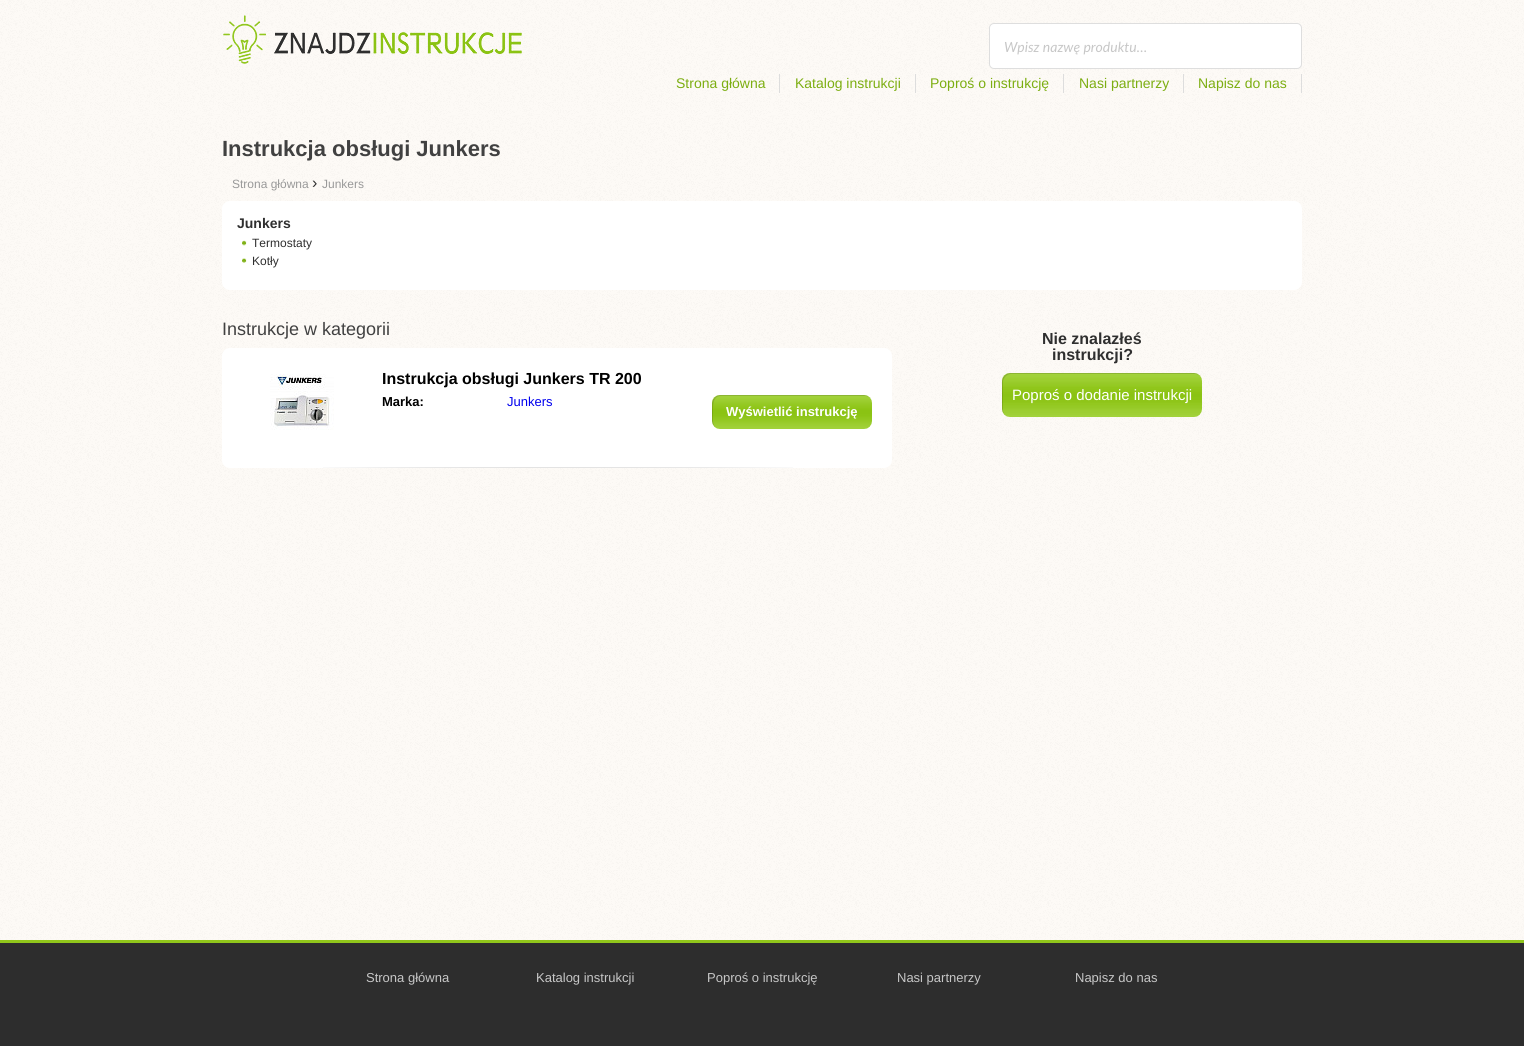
import math
import cairo


def use_color(cr, r, g, b):
  cr.set_source_rgb(r / 255, g / 255, b / 255)

def text(cr, x, y, s, family, size, color, bold=False, italic=False):
  cr.select_font_face(family, cairo.FONT_SLANT_ITALIC if italic else cairo.FONT_SLANT_NORMAL, cairo.FONT_WEIGHT_BOLD if bold else cairo.FONT_WEIGHT_NORMAL)
  cr.set_font_size(size)
  use_color(cr, *color)
  cr.move_to(x, y)
  cr.show_text(s)

def box(cr, x, y, w, h, *color):
  use_color(cr, *color)
  cr.rectangle(x, y, w, h)
  cr.fill()

def round_rect(cr, x, y, w, h, r):
  cr.new_sub_path()
  for i, (u, v) in enumerate([(x + w - r, y + h - r), (x + r, y + h - r), (x + r, y + r), (x + w - r, y + r)]):
    cr.arc(u, v, r, i * math.pi / 2, (i + 1) * math.pi / 2)
  cr.close_path()

def picture(cr, path, x, y, w, h):
  cr.save()
  cr.set_source_surface(cairo.ImageSurface.create_from_png(path), x, y)
  cr.rectangle(x, y, w, h)
  cr.fill()
  cr.restore()

def draw(cr):
  use_color(cr, 255, 255, 255)
  cr.paint()
  picture(cr, "img_01.png", 0, 0, 1524, 940)
  picture(cr, "img_02.png", 223, 15, 299, 49)
  use_color(cr, 255, 255, 255)
  round_rect(cr, 989, 23, 313, 46, 5)
  cr.fill()
  round_rect(cr, 989.5, 23.5, 312, 45, 4.5)
  cr.set_source_rgba(0.133, 0.141, 0.149, 0.15)
  cr.set_line_width(1)
  cr.stroke()
  box(cr, 779, 74, 1, 19, 221, 221, 221)
  box(cr, 915, 74, 1, 19, 221, 221, 221)
  box(cr, 1063, 74, 1, 19, 221, 221, 221)
  box(cr, 1183, 74, 1, 19, 221, 221, 221)
  box(cr, 1301, 74, 1, 19, 221, 221, 221)
  use_color(cr, 255, 255, 255)
  round_rect(cr, 222, 201, 1080, 89, 8)
  cr.fill()
  picture(cr, "img_03.png", 242, 240, 5, 6)
  picture(cr, "img_04.png", 242, 258, 5, 5)
  round_rect(cr, 222, 348, 670, 120, 8)
  cr.fill()
  picture(cr, "img_05.png", 323, 467, 470, 1)
  picture(cr, "img_06.png", 270, 374, 64, 56)
  picture(cr, "img_07.png", 712, 395, 160, 34)
  cr.set_source_rgba(0, 0, 0, 0.14)
  cr.new_path()
  cr.move_to(721, 396)
  cr.line_to(865, 396)
  cr.curve_to(867, 396, 869, 397, 871, 399)
  cr.curve_to(869, 397, 867, 395, 864, 395)
  cr.line_to(720, 395)
  cr.curve_to(716, 395, 712, 399, 712, 403)
  cr.line_to(712, 421)
  cr.curve_to(712, 424, 714, 426, 716, 428)
  cr.curve_to(712, 424, 713, 418, 713, 413)
  cr.curve_to(713, 407, 712, 396, 721, 396)
  cr.close_path()
  cr.fill()
  picture(cr, "img_08.png", 1002, 373, 200, 44)
  cr.new_path()
  cr.move_to(1011, 374)
  cr.line_to(1195, 374)
  cr.curve_to(1197, 374, 1199, 375, 1201, 377)
  cr.curve_to(1199, 375, 1197, 373, 1194, 373)
  cr.line_to(1010, 373)
  cr.curve_to(1006, 373, 1002, 377, 1002, 381)
  cr.line_to(1002, 409)
  cr.curve_to(1002, 412, 1004, 414, 1006, 416)
  cr.curve_to(1004, 414, 1003, 412, 1003, 410)
  cr.line_to(1003, 382)
  cr.curve_to(1003, 378, 1007, 374, 1011, 374)
  cr.close_path()
  cr.fill()
  box(cr, 0, 943, 1524, 103, 45, 45, 45)
  box(cr, 0, 940, 1524, 3, 144, 198, 27)
  text(cr, 1004, 52, "Wpisz nazwę produktu…", "Lato", 14, (199, 199, 199), italic=True)
  text(cr, 676, 88, "Strona główna", "Liberation Sans", 14, (124, 174, 17))
  text(cr, 795, 88, "Katalog instrukcji", "Liberation Sans", 14, (124, 174, 17))
  text(cr, 930, 88, "Poproś o instrukcję", "Liberation Sans", 14, (124, 174, 17))
  text(cr, 1079, 88, "Nasi partnerzy", "Liberation Sans", 14, (124, 174, 17))
  text(cr, 1198, 88, "Napisz do nas", "Liberation Sans", 14, (124, 174, 17))
  text(cr, 222, 156, "Instrukcja obsługi Junkers", "Liberation Sans", 22, (65, 65, 65), bold=True)
  text(cr, 232, 188, "Strona główna", "Liberation Sans", 12, (153, 153, 153))
  text(cr, 312, 188, "›", "Liberation Sans", 16, (47, 47, 47))
  text(cr, 322, 188, "Junkers", "Liberation Sans", 12, (153, 153, 153))
  text(cr, 237, 228, "Junkers", "Liberation Sans", 14, (47, 47, 47), bold=True)
  text(cr, 252, 247, "Termostaty", "Liberation Sans", 12, (47, 47, 47))
  text(cr, 252, 265, "Kotły", "Liberation Sans", 12, (47, 47, 47))
  text(cr, 222, 335, "Instrukcje w kategorii", "Liberation Sans", 18, (65, 65, 65))
  text(cr, 382, 384, "Instrukcja obsługi Junkers TR 200", "Liberation Sans", 16, (0, 0, 0), bold=True)
  text(cr, 382, 406, "Marka:", "Liberation Sans", 13, (0, 0, 0), bold=True)
  text(cr, 507, 406, "Junkers", "Liberation Sans", 13, (0, 0, 238))
  text(cr, 726, 416, "Wyświetlić instrukcję", "Liberation Sans", 13, (255, 255, 255), bold=True)
  text(cr, 1042, 344, "Nie znalazłeś", "Liberation Sans", 16, (47, 47, 47), bold=True)
  text(cr, 1052, 360, "instrukcji?", "Liberation Sans", 16, (47, 47, 47), bold=True)
  text(cr, 1012, 400, "Poproś o dodanie instrukcji", "Liberation Sans", 15, (255, 255, 255))
  text(cr, 366, 982, "Strona główna", "Liberation Sans", 13, (199, 199, 199))
  text(cr, 536, 982, "Katalog instrukcji", "Liberation Sans", 13, (199, 199, 199))
  text(cr, 707, 982, "Poproś o instrukcję", "Liberation Sans", 13, (199, 199, 199))
  text(cr, 897, 982, "Nasi partnerzy", "Liberation Sans", 13, (199, 199, 199))
  text(cr, 1075, 982, "Napisz do nas", "Liberation Sans", 13, (199, 199, 199))


surface = cairo.ImageSurface(cairo.FORMAT_RGB24, 1524, 1046)
cr = cairo.Context(surface)
options = cairo.FontOptions()
options.set_hint_metrics(cairo.HINT_METRICS_OFF)
options.set_hint_style(cairo.HINT_STYLE_NONE)
cr.set_font_options(options)
cr.set_miter_limit(4)
draw(cr)
surface.write_to_png("out.png")
